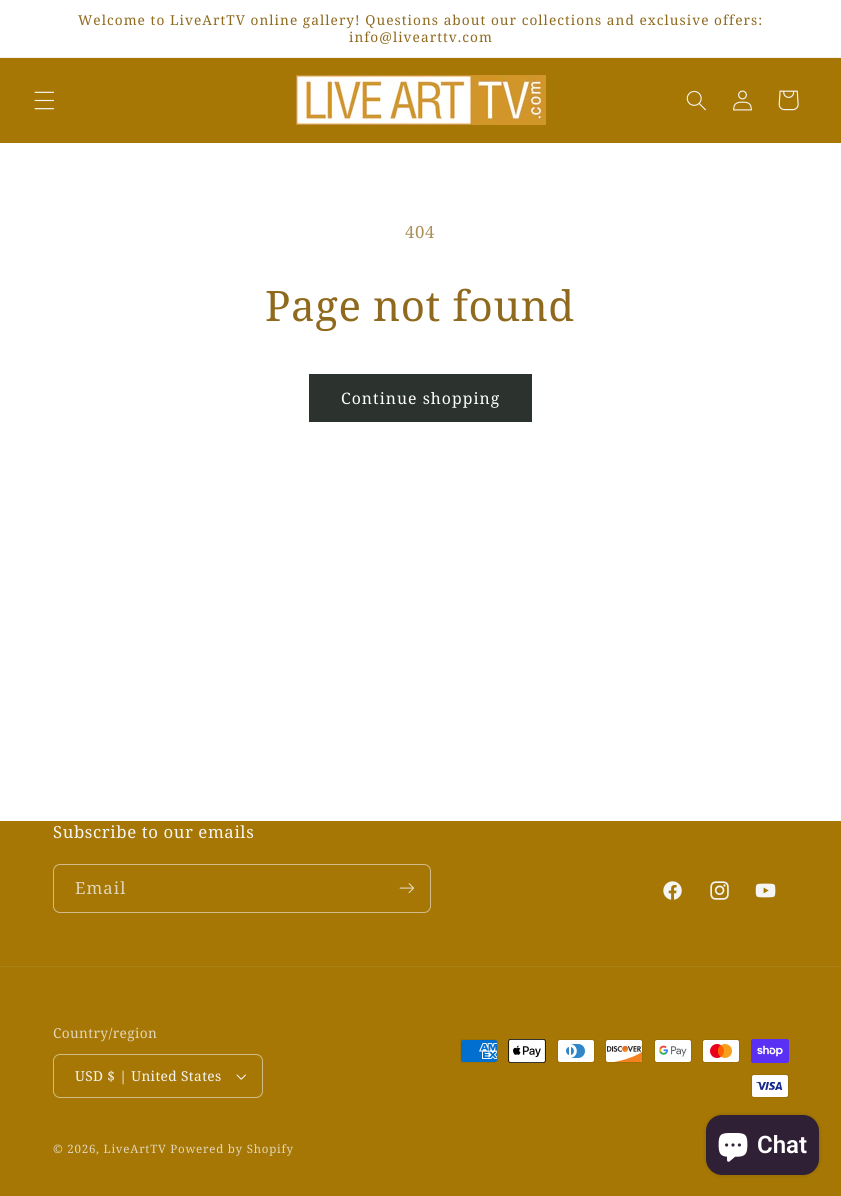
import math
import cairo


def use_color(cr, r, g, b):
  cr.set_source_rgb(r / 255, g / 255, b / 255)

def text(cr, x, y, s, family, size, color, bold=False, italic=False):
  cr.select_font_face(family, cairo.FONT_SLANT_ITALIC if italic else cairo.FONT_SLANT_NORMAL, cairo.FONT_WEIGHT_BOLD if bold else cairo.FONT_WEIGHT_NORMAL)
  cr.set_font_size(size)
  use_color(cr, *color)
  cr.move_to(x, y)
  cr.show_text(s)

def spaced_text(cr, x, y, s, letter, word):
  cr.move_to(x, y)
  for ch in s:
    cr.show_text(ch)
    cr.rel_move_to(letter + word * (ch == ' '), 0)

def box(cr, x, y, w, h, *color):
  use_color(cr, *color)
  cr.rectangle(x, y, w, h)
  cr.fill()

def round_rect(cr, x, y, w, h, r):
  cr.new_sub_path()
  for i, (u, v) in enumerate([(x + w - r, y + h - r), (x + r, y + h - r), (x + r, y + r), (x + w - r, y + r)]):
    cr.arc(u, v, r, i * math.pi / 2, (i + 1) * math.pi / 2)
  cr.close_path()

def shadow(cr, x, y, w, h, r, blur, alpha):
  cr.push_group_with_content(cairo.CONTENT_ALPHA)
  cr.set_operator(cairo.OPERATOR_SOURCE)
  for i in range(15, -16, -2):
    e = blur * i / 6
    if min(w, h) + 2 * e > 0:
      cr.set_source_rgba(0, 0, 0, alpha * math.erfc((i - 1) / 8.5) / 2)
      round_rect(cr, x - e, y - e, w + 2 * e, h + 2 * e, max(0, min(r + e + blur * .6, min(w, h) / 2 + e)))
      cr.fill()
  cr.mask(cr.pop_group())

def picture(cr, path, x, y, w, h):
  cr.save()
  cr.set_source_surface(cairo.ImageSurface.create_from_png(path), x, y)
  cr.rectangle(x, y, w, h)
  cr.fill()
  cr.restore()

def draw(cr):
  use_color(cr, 255, 255, 255)
  cr.paint()
  box(cr, 0, 57, 841, 1, 246, 243, 237)
  box(cr, 0, 58, 841, 85, 166, 119, 4)
  picture(cr, "img_01.png", 34, 91, 20, 19)
  picture(cr, "img_02.png", 296, 75, 250, 50)
  picture(cr, "img_03.png", 686, 90, 20, 21)
  picture(cr, "img_04.png", 733, 90, 19, 21)
  picture(cr, "img_05.png", 778, 90, 21, 21)
  box(cr, 309, 374, 223, 48, 44, 51, 47)
  box(cr, 0, 821, 841, 375, 166, 119, 4)
  round_rect(cr, 53.5, 864.5, 377, 48, 6.5)
  use_color(cr, 209, 188, 137)
  cr.set_line_width(1)
  cr.stroke()
  picture(cr, "img_06.png", 399, 883, 15, 11)
  picture(cr, "img_07.png", 663, 881, 19, 19)
  picture(cr, "img_08.png", 710, 881, 19, 19)
  picture(cr, "img_09.png", 755, 883, 21, 15)
  box(cr, 0, 966, 841, 1, 172, 129, 23)
  picture(cr, "img_10.png", 236, 1074, 10, 6)
  round_rect(cr, 53.5, 1054.5, 209, 43, 6.5)
  use_color(cr, 209, 188, 137)
  cr.stroke()
  picture(cr, "img_11.png", 460, 1039, 38, 24)
  picture(cr, "img_12.png", 508, 1039, 38, 24)
  picture(cr, "img_13.png", 557, 1039, 38, 24)
  picture(cr, "img_14.png", 605, 1039, 38, 24)
  picture(cr, "img_15.png", 654, 1039, 38, 24)
  picture(cr, "img_16.png", 702, 1039, 38, 24)
  picture(cr, "img_17.png", 751, 1039, 38, 24)
  picture(cr, "img_18.png", 751, 1074, 38, 24)
  use_color(cr, 0, 0, 0)
  shadow(cr, 706, 1115, 113, 60, 16, 2.5, 0.15)
  use_color(cr, 48, 32, 54)
  round_rect(cr, 706, 1115, 113, 60, 16)
  cr.fill()
  picture(cr, "img_19.png", 718, 1133, 30, 29)
  cr.select_font_face("Noto Serif")
  cr.set_font_size(13.65)
  use_color(cr, 143, 106, 30)
  spaced_text(cr, 78, 25, "Welcome to LiveArtTV online gallery! Questions about our collections and exclusive offers:", 1.05, 0)
  spaced_text(cr, 349, 42, "info@livearttv.com", 1.05, 0)
  cr.set_font_size(16.75)
  use_color(cr, 171, 143, 86)
  spaced_text(cr, 405, 238, "404", 0.6, 0)
  cr.set_font_size(42)
  use_color(cr, 143, 106, 30)
  spaced_text(cr, 265, 321, "Page not found", 0.6, 0)
  cr.set_font_size(15.75)
  use_color(cr, 255, 255, 255)
  spaced_text(cr, 341, 404, "Continue shopping", 1.05, 0)
  cr.set_font_size(16.75)
  use_color(cr, 245, 245, 245)
  spaced_text(cr, 53, 838, "Subscribe to our emails", 0.6, 0)
  use_color(cr, 225, 214, 185)
  spaced_text(cr, 75, 894, "Email", 1.05, 0)
  cr.set_font_size(13.65)
  spaced_text(cr, 53, 1038, "Country/region", 0.4, 0)
  use_color(cr, 245, 245, 245)
  spaced_text(cr, 75, 1081, "USD $ | United States", 0.4, 0)
  cr.set_font_size(11.55)
  use_color(cr, 225, 214, 185)
  spaced_text(cr, 53, 1153, "© 2026, LiveArtTV Powered by Shopify", 0.75, 0)
  text(cr, 757, 1153, "Chat", "Roboto SemiBold", 24, (255, 255, 255))


surface = cairo.ImageSurface(cairo.FORMAT_RGB24, 841, 1196)
cr = cairo.Context(surface)
options = cairo.FontOptions()
options.set_hint_metrics(cairo.HINT_METRICS_OFF)
options.set_hint_style(cairo.HINT_STYLE_NONE)
cr.set_font_options(options)
cr.set_miter_limit(4)
draw(cr)
surface.write_to_png("out.png")
